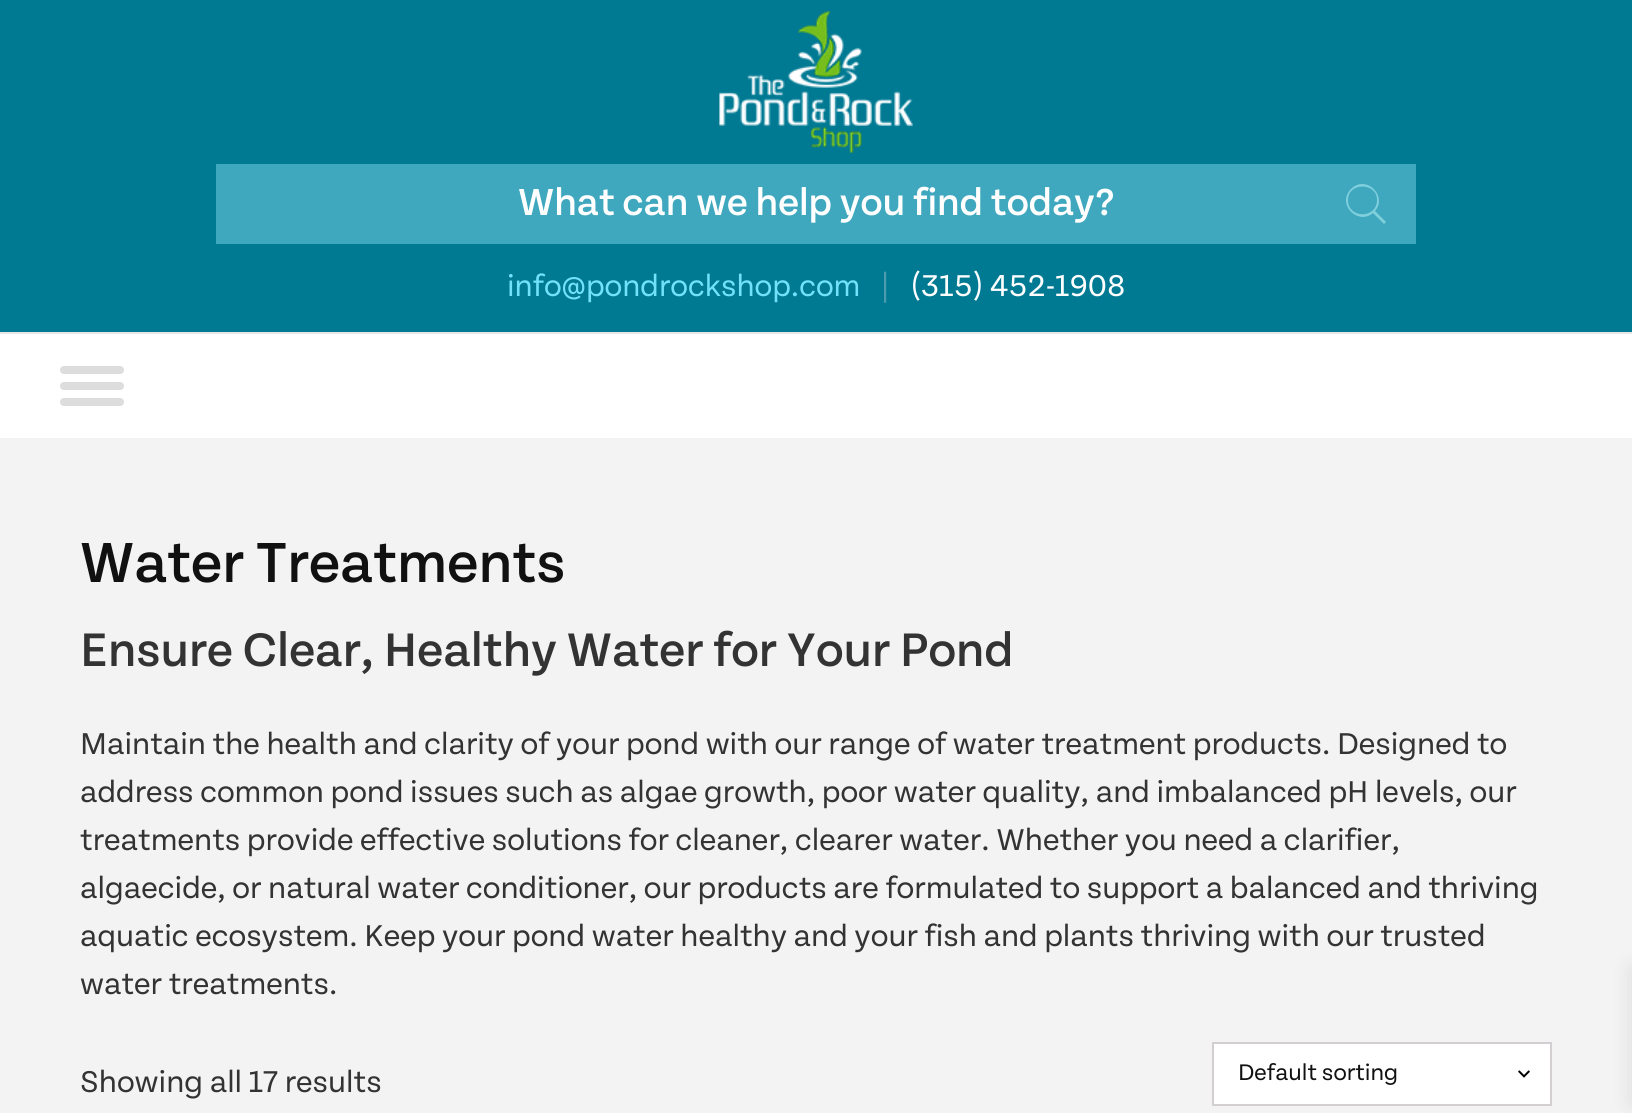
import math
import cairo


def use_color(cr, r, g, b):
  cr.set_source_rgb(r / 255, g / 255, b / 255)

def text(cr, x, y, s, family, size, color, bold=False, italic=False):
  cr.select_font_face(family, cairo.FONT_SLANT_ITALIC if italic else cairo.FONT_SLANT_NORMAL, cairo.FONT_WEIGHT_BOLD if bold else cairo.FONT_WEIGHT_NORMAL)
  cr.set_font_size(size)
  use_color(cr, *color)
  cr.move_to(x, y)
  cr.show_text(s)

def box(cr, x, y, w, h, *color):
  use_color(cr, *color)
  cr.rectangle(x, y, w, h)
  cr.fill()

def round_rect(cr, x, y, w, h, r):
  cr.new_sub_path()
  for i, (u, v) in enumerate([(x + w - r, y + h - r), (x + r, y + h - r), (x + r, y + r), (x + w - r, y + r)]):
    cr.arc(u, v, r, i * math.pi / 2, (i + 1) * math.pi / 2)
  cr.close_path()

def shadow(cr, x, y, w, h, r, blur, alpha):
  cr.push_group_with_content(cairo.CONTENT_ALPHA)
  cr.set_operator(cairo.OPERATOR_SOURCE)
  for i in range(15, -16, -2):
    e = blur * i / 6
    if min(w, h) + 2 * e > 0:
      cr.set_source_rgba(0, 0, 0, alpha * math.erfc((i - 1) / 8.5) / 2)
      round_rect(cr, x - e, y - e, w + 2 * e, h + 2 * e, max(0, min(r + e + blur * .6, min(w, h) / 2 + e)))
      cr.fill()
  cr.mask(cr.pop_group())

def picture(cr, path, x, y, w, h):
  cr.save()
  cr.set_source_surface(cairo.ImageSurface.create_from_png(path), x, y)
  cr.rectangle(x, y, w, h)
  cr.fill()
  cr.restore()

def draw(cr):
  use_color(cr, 243, 243, 243)
  cr.paint()
  box(cr, 0, 0, 1632, 332, 0, 121, 147)
  picture(cr, "img_01.png", 719, 11, 194, 142)
  box(cr, 216, 164, 1200, 80, 63, 168, 190)
  use_color(cr, 127, 207, 220)
  cr.new_path()
  cr.move_to(1386, 222)
  cr.line_to(1375, 211)
  cr.curve_to(1388, 196, 1366, 174, 1351, 189)
  cr.curve_to(1336, 204, 1358, 226, 1373, 213)
  cr.line_to(1384, 224)
  cr.close_path()
  cr.move_to(1348, 200)
  cr.curve_to(1348, 182, 1377, 182, 1377, 200)
  cr.curve_to(1377, 219, 1348, 219, 1348, 200)
  cr.close_path()
  cr.fill()
  box(cr, 0, 334, 1632, 104, 255, 255, 255)
  box(cr, 0, 332, 1632, 2, 230, 230, 230)
  use_color(cr, 221, 221, 221)
  round_rect(cr, 60, 366, 64, 8, 4)
  cr.fill()
  round_rect(cr, 60, 382, 64, 8, 4)
  cr.fill()
  round_rect(cr, 60, 398, 64, 8, 4)
  cr.fill()
  box(cr, 1214, 1044, 336, 60, 255, 255, 255)
  picture(cr, "img_02.png", 1518, 1070, 12, 8)
  cr.rectangle(1213, 1043, 338, 62)
  use_color(cr, 211, 206, 210)
  cr.stroke()
  use_color(cr, 0, 0, 0)
  shadow(cr, 1632, 968, 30, 136, 0, 10, 0.1)
  text(cr, 518, 215, "What can we help you find today?", "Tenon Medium", 40, (255, 255, 255))
  text(cr, 507, 296, "info@pondrockshop.com", "Tenon", 32, (113, 226, 250))
  text(cr, 880, 296, "|", "Tenon", 32, (75, 157, 174))
  text(cr, 911, 296, "(315) 452-1908", "Tenon", 32, (255, 255, 255))
  text(cr, 80, 582, "Water Treatments", "Tenon Medium", 60, (17, 17, 17))
  text(cr, 80, 666, "Ensure Clear, Healthy Water for Your Pond", "Tenon Medium", 50, (51, 51, 51))
  text(cr, 80, 754, "Maintain the health and clarity of your pond with our range of water treatment products. Designed to", "Tenon", 32, (51, 51, 51))
  text(cr, 80, 802, "address common pond issues such as algae growth, poor water quality, and imbalanced pH levels, our", "Tenon", 32, (51, 51, 51))
  text(cr, 80, 850, "treatments provide effective solutions for cleaner, clearer water. Whether you need a clarifier,", "Tenon", 32, (51, 51, 51))
  text(cr, 80, 898, "algaecide, or natural water conditioner, our products are formulated to support a balanced and thriving", "Tenon", 32, (51, 51, 51))
  text(cr, 80, 946, "aquatic ecosystem. Keep your pond water healthy and your fish and plants thriving with our trusted", "Tenon", 32, (51, 51, 51))
  text(cr, 80, 994, "water treatments.", "Tenon", 32, (51, 51, 51))
  text(cr, 80, 1092, "Showing all 17 results", "Tenon", 32, (51, 51, 51))
  text(cr, 1238, 1080, "Default sorting", "Tenon", 24, (17, 17, 17))


surface = cairo.ImageSurface(cairo.FORMAT_RGB24, 1632, 1113)
cr = cairo.Context(surface)
options = cairo.FontOptions()
options.set_hint_metrics(cairo.HINT_METRICS_OFF)
options.set_hint_style(cairo.HINT_STYLE_NONE)
cr.set_font_options(options)
cr.set_miter_limit(4)
draw(cr)
surface.write_to_png("out.png")
